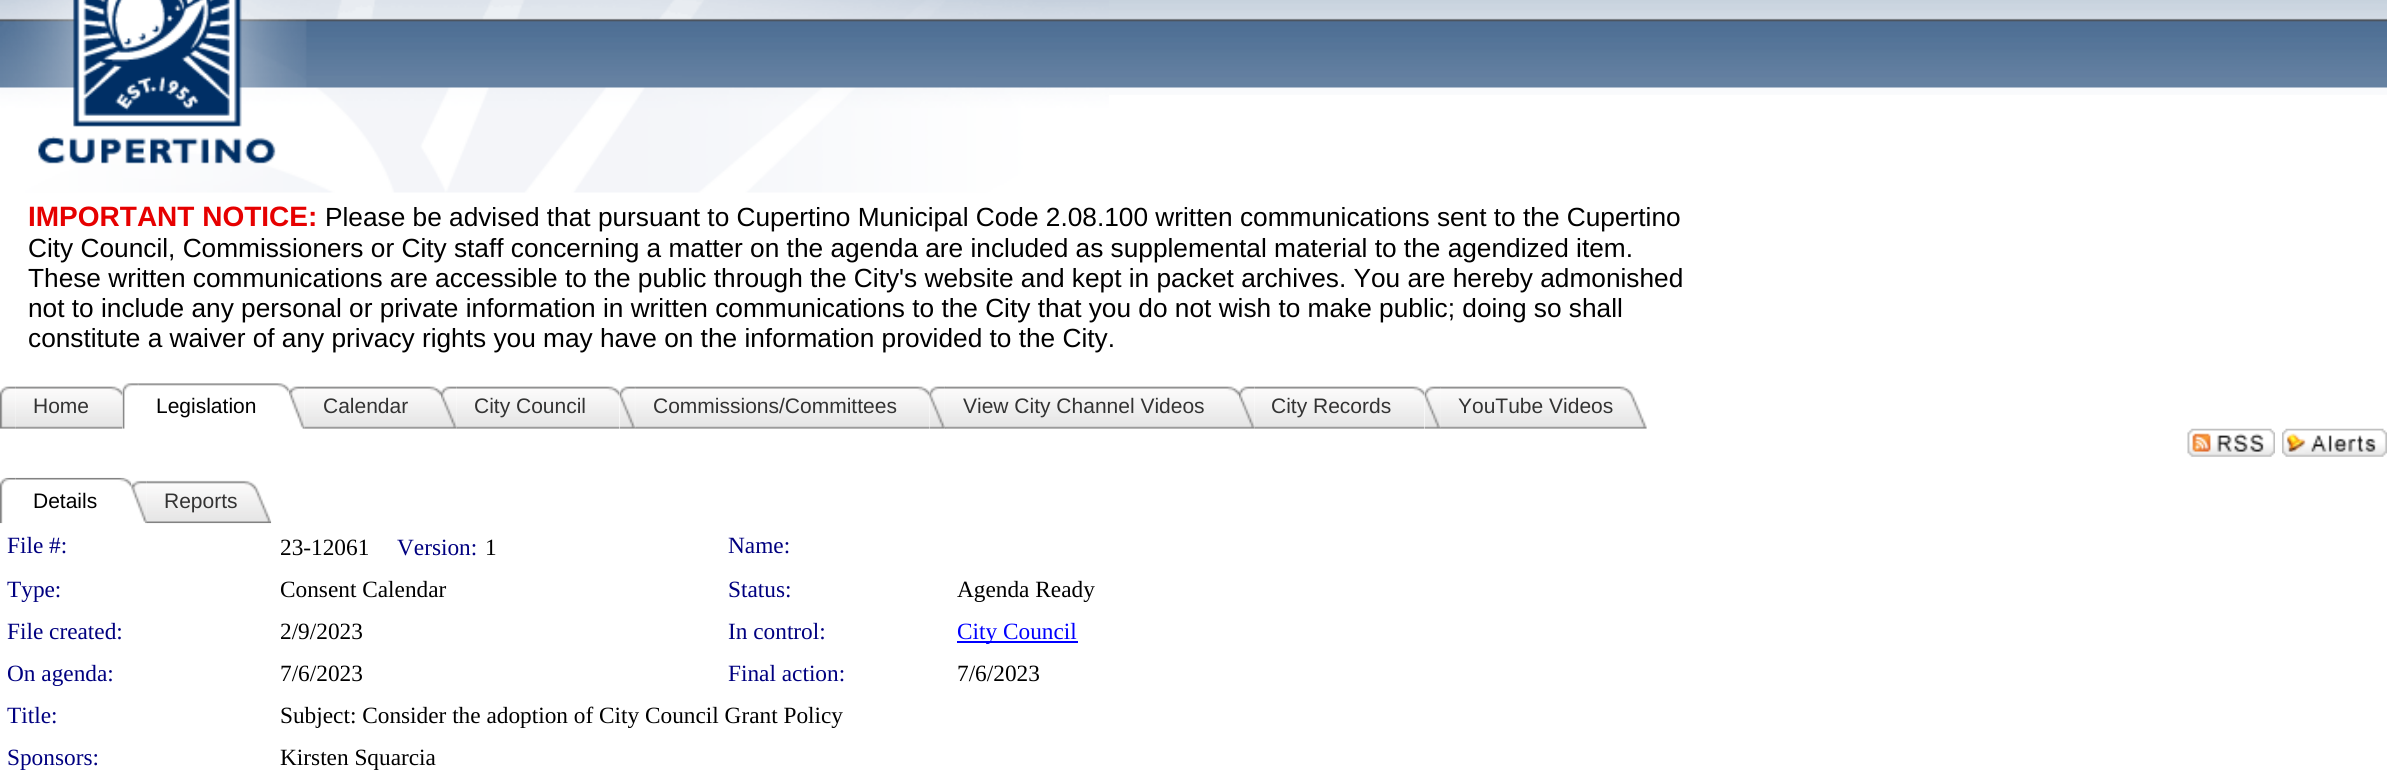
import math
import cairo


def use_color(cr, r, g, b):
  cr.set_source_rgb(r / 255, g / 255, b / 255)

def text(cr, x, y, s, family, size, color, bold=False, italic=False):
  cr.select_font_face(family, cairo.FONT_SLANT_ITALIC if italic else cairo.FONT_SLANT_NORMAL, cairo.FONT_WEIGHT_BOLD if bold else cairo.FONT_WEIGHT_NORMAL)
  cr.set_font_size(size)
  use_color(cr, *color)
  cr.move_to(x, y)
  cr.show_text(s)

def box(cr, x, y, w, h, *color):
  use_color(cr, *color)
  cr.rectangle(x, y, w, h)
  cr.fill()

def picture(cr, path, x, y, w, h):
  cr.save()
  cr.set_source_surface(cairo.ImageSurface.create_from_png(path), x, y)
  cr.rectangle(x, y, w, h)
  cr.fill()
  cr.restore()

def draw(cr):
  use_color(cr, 255, 255, 255)
  cr.paint()
  picture(cr, "img_01.png", 1109, 0, 1278, 95)
  picture(cr, "img_02.png", 0, 0, 1109, 193)
  picture(cr, "img_03.png", 0, 386, 17, 43)
  picture(cr, "img_04.png", 15, 386, 108, 43)
  picture(cr, "img_05.png", 122, 383, 17, 46)
  picture(cr, "img_06.png", 138, 383, 151, 10)
  picture(cr, "img_07.png", 288, 386, 17, 43)
  picture(cr, "img_08.png", 304, 386, 137, 43)
  picture(cr, "img_09.png", 441, 386, 17, 43)
  picture(cr, "img_10.png", 456, 386, 164, 43)
  picture(cr, "img_11.png", 619, 386, 17, 43)
  picture(cr, "img_12.png", 635, 386, 295, 43)
  picture(cr, "img_13.png", 929, 386, 17, 43)
  picture(cr, "img_14.png", 945, 386, 294, 43)
  picture(cr, "img_15.png", 1239, 386, 17, 43)
  picture(cr, "img_16.png", 1254, 386, 171, 43)
  picture(cr, "img_17.png", 1424, 386, 17, 43)
  picture(cr, "img_18.png", 1440, 386, 207, 43)
  picture(cr, "img_19.png", 2187, 428, 88, 29)
  picture(cr, "img_20.png", 2282, 428, 105, 29)
  picture(cr, "img_21.png", 0, 477, 17, 47)
  picture(cr, "img_22.png", 15, 477, 117, 10)
  picture(cr, "img_23.png", 131, 480, 17, 44)
  picture(cr, "img_24.png", 147, 480, 125, 44)
  box(cr, 957, 641, 121, 2, 0, 0, 255)
  text(cr, 28, 226, "IMPORTANT NOTICE:", "Liberation Sans", 28, (230, 0, 0), bold=True)
  text(cr, 325, 226, "Please be advised that pursuant to Cupertino Municipal Code 2.08.100 written communications sent to the Cupertino", "Liberation Sans", 26.25, (0, 0, 0))
  text(cr, 28, 257, "City Council, Commissioners or City staff concerning a matter on the agenda are included as supplemental material to the agendized item.", "Liberation Sans", 26.25, (0, 0, 0))
  text(cr, 28, 287, "These written communications are accessible to the public through the City's website and kept in packet archives. You are hereby admonished", "Liberation Sans", 26.25, (0, 0, 0))
  text(cr, 28, 317, "not to include any personal or private information in written communications to the City that you do not wish to make public; doing so shall", "Liberation Sans", 26.25, (0, 0, 0))
  text(cr, 28, 347, "constitute a waiver of any privacy rights you may have on the information provided to the City.", "Liberation Sans", 26.25, (0, 0, 0))
  text(cr, 33, 413, "Home", "Liberation Sans", 21, (51, 51, 51))
  text(cr, 156, 413, "Legislation", "Liberation Sans", 21, (0, 0, 0))
  text(cr, 323, 413, "Calendar", "Liberation Sans", 21, (51, 51, 51))
  text(cr, 474, 413, "City Council", "Liberation Sans", 21, (51, 51, 51))
  text(cr, 653, 413, "Commissions/Committees", "Liberation Sans", 21, (51, 51, 51))
  text(cr, 963, 413, "View City Channel Videos", "Liberation Sans", 21, (51, 51, 51))
  text(cr, 1271, 413, "City Records", "Liberation Sans", 21, (51, 51, 51))
  text(cr, 1458, 413, "YouTube Videos", "Liberation Sans", 21, (51, 51, 51))
  text(cr, 33, 508, "Details", "Liberation Sans", 21, (0, 0, 0))
  text(cr, 164, 508, "Reports", "Liberation Sans", 21, (51, 51, 51))
  text(cr, 7, 553, "File #:", "Liberation Serif", 23.3, (0, 0, 128))
  text(cr, 280, 555, "23-12061", "Liberation Serif", 23.3, (0, 0, 0))
  text(cr, 397, 555, "Version:", "Liberation Serif", 23.3, (0, 0, 128))
  text(cr, 485, 555, "1", "Liberation Serif", 23.3, (0, 0, 0))
  text(cr, 728, 553, "Name:", "Liberation Serif", 23.3, (0, 0, 128))
  text(cr, 7, 597, "Type:", "Liberation Serif", 23.3, (0, 0, 128))
  text(cr, 280, 597, "Consent Calendar", "Liberation Serif", 23.3, (0, 0, 0))
  text(cr, 728, 597, "Status:", "Liberation Serif", 23.3, (0, 0, 128))
  text(cr, 957, 597, "Agenda Ready", "Liberation Serif", 23.3, (0, 0, 0))
  text(cr, 7, 639, "File created:", "Liberation Serif", 23.3, (0, 0, 128))
  text(cr, 280, 639, "2/9/2023", "Liberation Serif", 23.3, (0, 0, 0))
  text(cr, 728, 639, "In control:", "Liberation Serif", 23.3, (0, 0, 128))
  text(cr, 957, 639, "City Council", "Liberation Serif", 23.3, (0, 0, 255))
  text(cr, 7, 681, "On agenda:", "Liberation Serif", 23.3, (0, 0, 128))
  text(cr, 280, 681, "7/6/2023", "Liberation Serif", 23.3, (0, 0, 0))
  text(cr, 728, 681, "Final action:", "Liberation Serif", 23.3, (0, 0, 128))
  text(cr, 957, 681, "7/6/2023", "Liberation Serif", 23.3, (0, 0, 0))
  text(cr, 7, 723, "Title:", "Liberation Serif", 23.3, (0, 0, 128))
  text(cr, 280, 723, "Subject: Consider the adoption of City Council Grant Policy", "Liberation Serif", 23.3, (0, 0, 0))
  text(cr, 7, 765, "Sponsors:", "Liberation Serif", 23.3, (0, 0, 128))
  text(cr, 280, 765, "Kirsten Squarcia", "Liberation Serif", 23.3, (0, 0, 0))


surface = cairo.ImageSurface(cairo.FORMAT_RGB24, 2387, 773)
cr = cairo.Context(surface)
options = cairo.FontOptions()
options.set_hint_metrics(cairo.HINT_METRICS_OFF)
options.set_hint_style(cairo.HINT_STYLE_NONE)
cr.set_font_options(options)
cr.set_miter_limit(4)
draw(cr)
surface.write_to_png("out.png")
